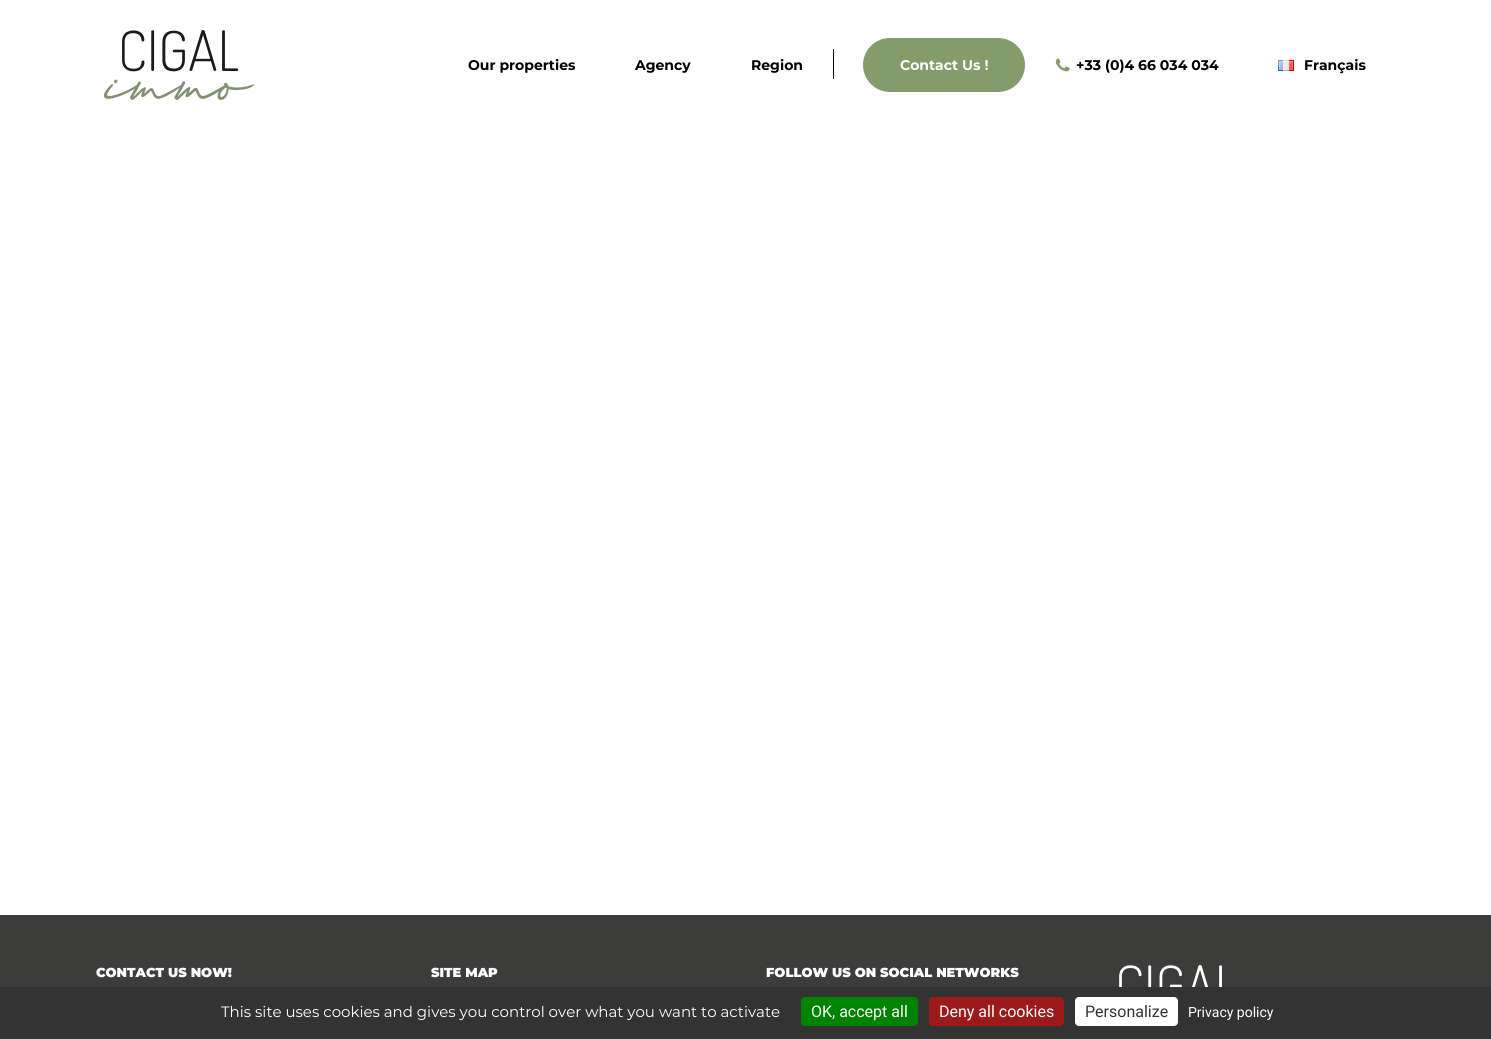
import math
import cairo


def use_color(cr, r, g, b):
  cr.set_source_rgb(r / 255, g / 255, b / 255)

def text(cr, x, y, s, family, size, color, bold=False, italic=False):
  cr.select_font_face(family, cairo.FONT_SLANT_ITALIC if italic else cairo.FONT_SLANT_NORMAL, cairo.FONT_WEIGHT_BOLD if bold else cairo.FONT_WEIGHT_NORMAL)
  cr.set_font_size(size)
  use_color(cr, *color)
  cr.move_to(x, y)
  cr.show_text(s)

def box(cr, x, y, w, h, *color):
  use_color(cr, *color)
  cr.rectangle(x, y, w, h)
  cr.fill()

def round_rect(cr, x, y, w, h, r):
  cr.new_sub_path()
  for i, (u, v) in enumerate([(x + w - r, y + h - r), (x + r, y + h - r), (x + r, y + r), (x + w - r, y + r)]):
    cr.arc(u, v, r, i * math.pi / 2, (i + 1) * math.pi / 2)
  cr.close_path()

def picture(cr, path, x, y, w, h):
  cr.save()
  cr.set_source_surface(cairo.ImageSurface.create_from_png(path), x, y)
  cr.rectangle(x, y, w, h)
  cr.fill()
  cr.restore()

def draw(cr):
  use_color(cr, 255, 255, 255)
  cr.paint()
  picture(cr, "img_01.png", 104, 30, 150, 70)
  box(cr, 833, 49, 1, 30, 0, 0, 0)
  use_color(cr, 132, 156, 108)
  round_rect(cr, 863, 38, 162, 54, 27)
  cr.fill()
  picture(cr, "img_02.png", 1055, 58, 15, 14)
  picture(cr, "img_03.png", 1278, 60, 16, 11)
  box(cr, 0, 915, 1491, 72, 60, 60, 59)
  picture(cr, "img_04.png", 1119, 965, 103, 22)
  box(cr, 0, 987, 1491, 52, 51, 51, 51)
  use_color(cr, 0, 131, 0)
  round_rect(cr, 801, 997, 117, 29, 4)
  cr.fill()
  use_color(cr, 156, 26, 26)
  round_rect(cr, 929, 997, 135, 29, 4)
  cr.fill()
  use_color(cr, 255, 255, 255)
  round_rect(cr, 1075, 997, 103, 29, 4)
  cr.fill()
  text(cr, 468, 70, "Our properties", "Montserrat", 14, (0, 0, 0), bold=True)
  text(cr, 635, 70, "Agency", "Montserrat", 14, (0, 0, 0), bold=True)
  text(cr, 751, 70, "Region", "Montserrat", 14, (0, 0, 0), bold=True)
  text(cr, 900, 70, "Contact Us !", "Montserrat", 14, (255, 255, 255), bold=True)
  text(cr, 1076, 70, "+33 (0)4 66 034 034", "Montserrat", 14, (0, 0, 0), bold=True)
  text(cr, 1304, 70, "Français", "Montserrat", 14, (0, 0, 0), bold=True)
  text(cr, 96, 977, "CONTACT US NOW!", "Montserrat Black", 13, (255, 255, 255))
  text(cr, 431, 977, "SITE MAP", "Montserrat Black", 13, (255, 255, 255))
  text(cr, 766, 977, "FOLLOW US ON SOCIAL NETWORKS", "Montserrat Black", 13, (255, 255, 255))
  text(cr, 221, 1017, "This site uses cookies and gives you control over what you want to activate", "Montserrat", 15, (255, 255, 255))
  text(cr, 811, 1017, "OK, accept all", "Roboto", 16, (255, 255, 255))
  text(cr, 939, 1017, "Deny all cookies", "Roboto", 16, (255, 255, 255))
  text(cr, 1085, 1017, "Personalize", "Roboto", 16, (51, 51, 51))
  text(cr, 1188, 1017, "Privacy policy", "Roboto", 14, (255, 255, 255))


surface = cairo.ImageSurface(cairo.FORMAT_RGB24, 1491, 1039)
cr = cairo.Context(surface)
options = cairo.FontOptions()
options.set_hint_metrics(cairo.HINT_METRICS_OFF)
options.set_hint_style(cairo.HINT_STYLE_NONE)
cr.set_font_options(options)
cr.set_miter_limit(4)
draw(cr)
surface.write_to_png("out.png")
